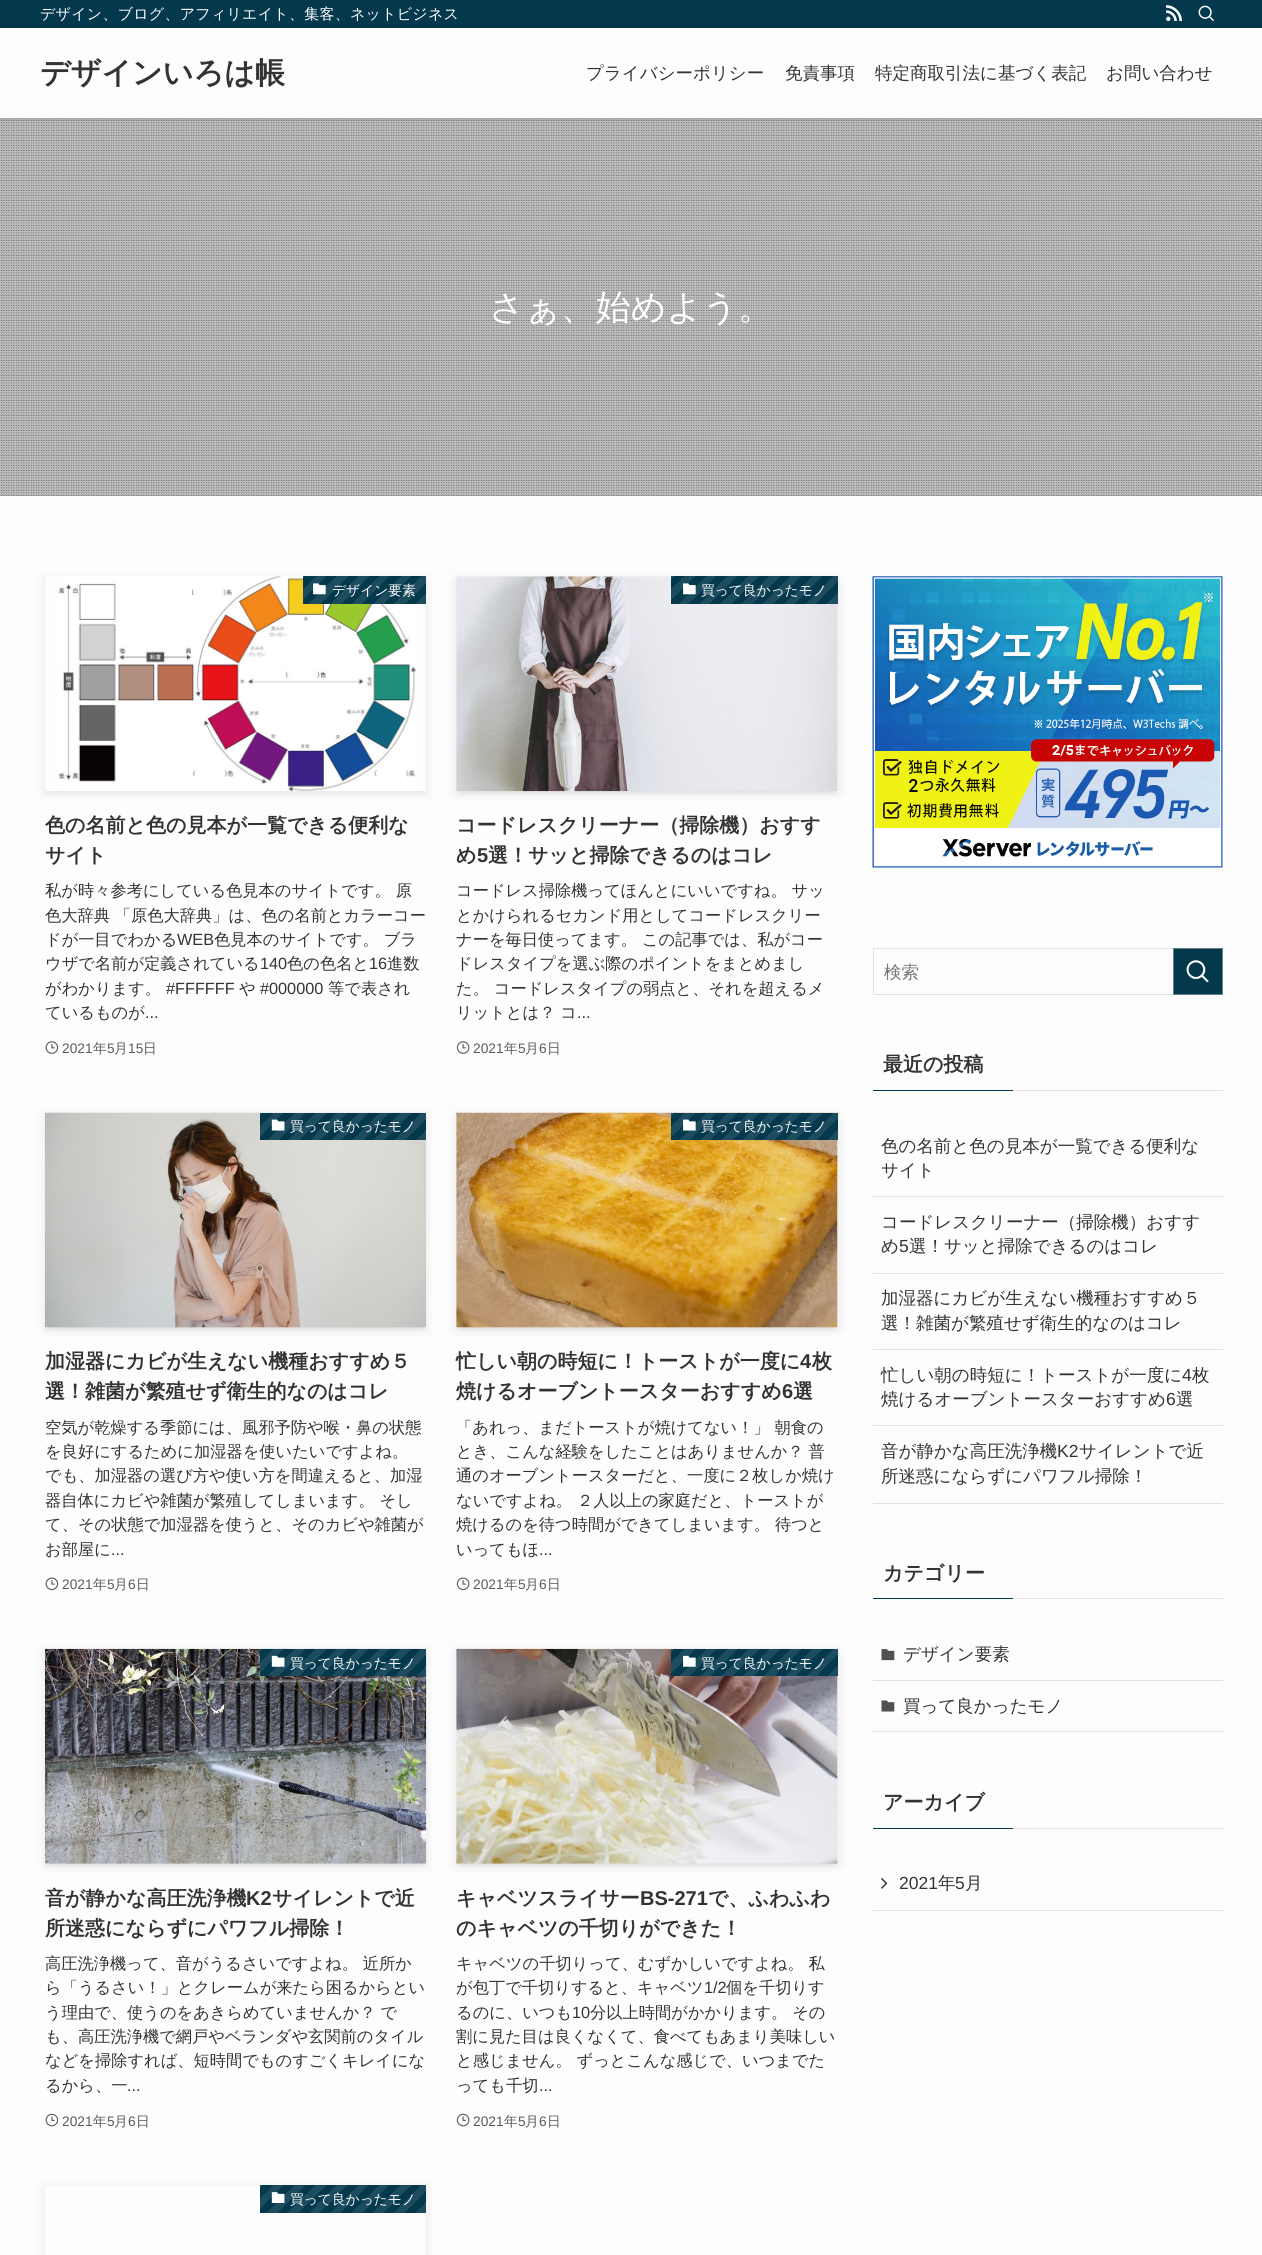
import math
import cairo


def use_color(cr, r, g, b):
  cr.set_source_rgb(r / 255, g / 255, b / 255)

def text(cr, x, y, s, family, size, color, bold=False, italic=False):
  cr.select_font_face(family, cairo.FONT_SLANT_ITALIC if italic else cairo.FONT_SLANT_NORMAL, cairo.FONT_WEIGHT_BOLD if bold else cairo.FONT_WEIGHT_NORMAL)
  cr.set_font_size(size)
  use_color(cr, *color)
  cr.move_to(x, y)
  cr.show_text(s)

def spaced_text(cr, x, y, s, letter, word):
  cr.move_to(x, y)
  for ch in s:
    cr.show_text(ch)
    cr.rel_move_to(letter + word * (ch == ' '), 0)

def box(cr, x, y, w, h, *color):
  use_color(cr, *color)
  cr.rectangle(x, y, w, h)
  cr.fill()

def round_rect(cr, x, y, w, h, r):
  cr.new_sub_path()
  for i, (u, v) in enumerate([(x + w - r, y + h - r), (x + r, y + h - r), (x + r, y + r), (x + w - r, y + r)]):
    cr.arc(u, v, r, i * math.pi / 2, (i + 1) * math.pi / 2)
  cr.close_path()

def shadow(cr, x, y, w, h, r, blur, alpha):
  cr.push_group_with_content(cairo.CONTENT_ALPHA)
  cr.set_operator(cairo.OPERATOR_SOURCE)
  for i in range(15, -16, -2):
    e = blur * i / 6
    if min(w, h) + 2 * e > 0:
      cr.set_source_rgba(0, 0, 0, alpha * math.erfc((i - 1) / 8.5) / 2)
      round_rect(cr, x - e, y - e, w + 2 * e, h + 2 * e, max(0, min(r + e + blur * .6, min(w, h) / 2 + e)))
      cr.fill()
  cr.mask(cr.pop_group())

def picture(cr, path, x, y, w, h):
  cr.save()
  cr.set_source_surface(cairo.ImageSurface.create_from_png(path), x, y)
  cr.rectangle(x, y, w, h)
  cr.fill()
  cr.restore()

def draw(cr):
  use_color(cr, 253, 253, 253)
  cr.paint()
  box(cr, 0, 118, 1262, 378, 192, 192, 192)
  picture(cr, "img_03.png", 0, 118, 1262, 378)
  use_color(cr, 0, 0, 0)
  shadow(cr, 0, 1, 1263, 118, 0, 2.5, 0.12)
  box(cr, 0, 28, 1262, 90, 253, 253, 253)
  box(cr, 0, 0, 1262, 28, 4, 56, 76)
  picture(cr, "img_01.png", 1166, 5, 16, 16)
  picture(cr, "img_02.png", 1198, 5, 16, 16)
  cr.save()
  cr.set_fill_rule(cairo.FILL_RULE_EVEN_ODD)
  cr.new_path()
  cr.move_to(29, 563)
  cr.line_to(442, 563)
  cr.line_to(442, 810)
  cr.line_to(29, 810)
  cr.close_path()
  cr.move_to(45, 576)
  cr.line_to(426, 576)
  cr.line_to(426, 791)
  cr.line_to(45, 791)
  cr.close_path()
  cr.clip()
  use_color(cr, 0, 0, 0)
  shadow(cr, 45, 579, 381, 215, 0, 5, 0.1)
  cr.restore()
  picture(cr, "img_04.png", 58, 576, 360, 215)
  gradient = cairo.LinearGradient(402, 628, 317, 543)
  gradient.add_color_stop_rgba(0, 0.114, 0.298, 0.369, 1)
  gradient.add_color_stop_rgba(0.06, 0.114, 0.298, 0.369, 1)
  gradient.add_color_stop_rgba(0.06, 0.016, 0.22, 0.298, 1)
  gradient.add_color_stop_rgba(0.12, 0.016, 0.22, 0.298, 1)
  gradient.add_color_stop_rgba(0.12, 0.114, 0.298, 0.369, 1)
  gradient.add_color_stop_rgba(0.19, 0.114, 0.298, 0.369, 1)
  gradient.add_color_stop_rgba(0.19, 0.016, 0.22, 0.298, 1)
  gradient.add_color_stop_rgba(0.25, 0.016, 0.22, 0.298, 1)
  gradient.add_color_stop_rgba(0.25, 0.114, 0.298, 0.369, 1)
  gradient.add_color_stop_rgba(0.31, 0.114, 0.298, 0.369, 1)
  gradient.add_color_stop_rgba(0.31, 0.016, 0.22, 0.298, 1)
  gradient.add_color_stop_rgba(0.38, 0.016, 0.22, 0.298, 1)
  gradient.add_color_stop_rgba(0.38, 0.114, 0.298, 0.369, 1)
  gradient.add_color_stop_rgba(0.44, 0.114, 0.298, 0.369, 1)
  gradient.add_color_stop_rgba(0.44, 0.016, 0.22, 0.298, 1)
  gradient.add_color_stop_rgba(0.5, 0.016, 0.22, 0.298, 1)
  gradient.add_color_stop_rgba(0.5, 0.114, 0.298, 0.369, 1)
  gradient.add_color_stop_rgba(0.56, 0.114, 0.298, 0.369, 1)
  gradient.add_color_stop_rgba(0.56, 0.016, 0.22, 0.298, 1)
  gradient.add_color_stop_rgba(0.62, 0.016, 0.22, 0.298, 1)
  gradient.add_color_stop_rgba(0.62, 0.114, 0.298, 0.369, 1)
  gradient.add_color_stop_rgba(0.69, 0.114, 0.298, 0.369, 1)
  gradient.add_color_stop_rgba(0.69, 0.016, 0.22, 0.298, 1)
  gradient.add_color_stop_rgba(0.75, 0.016, 0.22, 0.298, 1)
  gradient.add_color_stop_rgba(0.75, 0.114, 0.298, 0.369, 1)
  gradient.add_color_stop_rgba(0.81, 0.114, 0.298, 0.369, 1)
  gradient.add_color_stop_rgba(0.81, 0.016, 0.22, 0.298, 1)
  gradient.add_color_stop_rgba(0.88, 0.016, 0.22, 0.298, 1)
  gradient.add_color_stop_rgba(0.88, 0.114, 0.298, 0.369, 1)
  gradient.add_color_stop_rgba(0.94, 0.114, 0.298, 0.369, 1)
  gradient.add_color_stop_rgba(0.94, 0.016, 0.22, 0.298, 1)
  gradient.add_color_stop_rgba(1, 0.016, 0.22, 0.298, 1)
  cr.set_source(gradient)
  cr.rectangle(303, 576, 123, 28)
  cr.fill()
  picture(cr, "img_05.png", 313, 583, 13, 12)
  picture(cr, "img_06.png", 45, 1041, 14, 13)
  use_color(cr, 0, 0, 0)
  shadow(cr, 461, 586, 372, 205, 0, 2.5, 0.1)
  shadow(cr, 456, 579, 382, 215, 0, 5, 0.1)
  picture(cr, "img_07.png", 456, 576, 382, 216)
  gradient = cairo.LinearGradient(803, 638, 697, 532)
  gradient.add_color_stop_rgba(0, 0.114, 0.298, 0.369, 1)
  gradient.add_color_stop_rgba(0.05, 0.114, 0.298, 0.369, 1)
  gradient.add_color_stop_rgba(0.05, 0.016, 0.22, 0.298, 1)
  gradient.add_color_stop_rgba(0.1, 0.016, 0.22, 0.298, 1)
  gradient.add_color_stop_rgba(0.1, 0.114, 0.298, 0.369, 1)
  gradient.add_color_stop_rgba(0.15, 0.114, 0.298, 0.369, 1)
  gradient.add_color_stop_rgba(0.15, 0.016, 0.22, 0.298, 1)
  gradient.add_color_stop_rgba(0.2, 0.016, 0.22, 0.298, 1)
  gradient.add_color_stop_rgba(0.2, 0.114, 0.298, 0.369, 1)
  gradient.add_color_stop_rgba(0.25, 0.114, 0.298, 0.369, 1)
  gradient.add_color_stop_rgba(0.25, 0.016, 0.22, 0.298, 1)
  gradient.add_color_stop_rgba(0.3, 0.016, 0.22, 0.298, 1)
  gradient.add_color_stop_rgba(0.3, 0.114, 0.298, 0.369, 1)
  gradient.add_color_stop_rgba(0.35, 0.114, 0.298, 0.369, 1)
  gradient.add_color_stop_rgba(0.35, 0.016, 0.22, 0.298, 1)
  gradient.add_color_stop_rgba(0.4, 0.016, 0.22, 0.298, 1)
  gradient.add_color_stop_rgba(0.4, 0.114, 0.298, 0.369, 1)
  gradient.add_color_stop_rgba(0.45, 0.114, 0.298, 0.369, 1)
  gradient.add_color_stop_rgba(0.45, 0.016, 0.22, 0.298, 1)
  gradient.add_color_stop_rgba(0.5, 0.016, 0.22, 0.298, 1)
  gradient.add_color_stop_rgba(0.5, 0.114, 0.298, 0.369, 1)
  gradient.add_color_stop_rgba(0.55, 0.114, 0.298, 0.369, 1)
  gradient.add_color_stop_rgba(0.55, 0.016, 0.22, 0.298, 1)
  gradient.add_color_stop_rgba(0.6, 0.016, 0.22, 0.298, 1)
  gradient.add_color_stop_rgba(0.6, 0.114, 0.298, 0.369, 1)
  gradient.add_color_stop_rgba(0.65, 0.114, 0.298, 0.369, 1)
  gradient.add_color_stop_rgba(0.65, 0.016, 0.22, 0.298, 1)
  gradient.add_color_stop_rgba(0.7, 0.016, 0.22, 0.298, 1)
  gradient.add_color_stop_rgba(0.7, 0.114, 0.298, 0.369, 1)
  gradient.add_color_stop_rgba(0.75, 0.114, 0.298, 0.369, 1)
  gradient.add_color_stop_rgba(0.75, 0.016, 0.22, 0.298, 1)
  gradient.add_color_stop_rgba(0.8, 0.016, 0.22, 0.298, 1)
  gradient.add_color_stop_rgba(0.8, 0.114, 0.298, 0.369, 1)
  gradient.add_color_stop_rgba(0.85, 0.114, 0.298, 0.369, 1)
  gradient.add_color_stop_rgba(0.85, 0.016, 0.22, 0.298, 1)
  gradient.add_color_stop_rgba(0.9, 0.016, 0.22, 0.298, 1)
  gradient.add_color_stop_rgba(0.9, 0.114, 0.298, 0.369, 1)
  gradient.add_color_stop_rgba(0.95, 0.114, 0.298, 0.369, 1)
  gradient.add_color_stop_rgba(0.95, 0.016, 0.22, 0.298, 1)
  gradient.add_color_stop_rgba(1, 0.016, 0.22, 0.298, 1)
  cr.set_source(gradient)
  cr.rectangle(671, 576, 167, 28)
  cr.fill()
  picture(cr, "img_08.png", 683, 583, 13, 12)
  picture(cr, "img_09.png", 456, 1041, 14, 13)
  use_color(cr, 0, 0, 0)
  shadow(cr, 50, 1123, 371, 205, 0, 2.5, 0.1)
  shadow(cr, 45, 1115, 381, 215, 0, 5, 0.1)
  picture(cr, "img_10.png", 45, 1112, 381, 216)
  gradient = cairo.LinearGradient(392, 1175, 285, 1069)
  gradient.add_color_stop_rgba(0, 0.114, 0.298, 0.369, 1)
  gradient.add_color_stop_rgba(0.05, 0.114, 0.298, 0.369, 1)
  gradient.add_color_stop_rgba(0.05, 0.016, 0.22, 0.298, 1)
  gradient.add_color_stop_rgba(0.1, 0.016, 0.22, 0.298, 1)
  gradient.add_color_stop_rgba(0.1, 0.114, 0.298, 0.369, 1)
  gradient.add_color_stop_rgba(0.15, 0.114, 0.298, 0.369, 1)
  gradient.add_color_stop_rgba(0.15, 0.016, 0.22, 0.298, 1)
  gradient.add_color_stop_rgba(0.2, 0.016, 0.22, 0.298, 1)
  gradient.add_color_stop_rgba(0.2, 0.114, 0.298, 0.369, 1)
  gradient.add_color_stop_rgba(0.25, 0.114, 0.298, 0.369, 1)
  gradient.add_color_stop_rgba(0.25, 0.016, 0.22, 0.298, 1)
  gradient.add_color_stop_rgba(0.3, 0.016, 0.22, 0.298, 1)
  gradient.add_color_stop_rgba(0.3, 0.114, 0.298, 0.369, 1)
  gradient.add_color_stop_rgba(0.35, 0.114, 0.298, 0.369, 1)
  gradient.add_color_stop_rgba(0.35, 0.016, 0.22, 0.298, 1)
  gradient.add_color_stop_rgba(0.4, 0.016, 0.22, 0.298, 1)
  gradient.add_color_stop_rgba(0.4, 0.114, 0.298, 0.369, 1)
  gradient.add_color_stop_rgba(0.45, 0.114, 0.298, 0.369, 1)
  gradient.add_color_stop_rgba(0.45, 0.016, 0.22, 0.298, 1)
  gradient.add_color_stop_rgba(0.5, 0.016, 0.22, 0.298, 1)
  gradient.add_color_stop_rgba(0.5, 0.114, 0.298, 0.369, 1)
  gradient.add_color_stop_rgba(0.55, 0.114, 0.298, 0.369, 1)
  gradient.add_color_stop_rgba(0.55, 0.016, 0.22, 0.298, 1)
  gradient.add_color_stop_rgba(0.6, 0.016, 0.22, 0.298, 1)
  gradient.add_color_stop_rgba(0.6, 0.114, 0.298, 0.369, 1)
  gradient.add_color_stop_rgba(0.65, 0.114, 0.298, 0.369, 1)
  gradient.add_color_stop_rgba(0.65, 0.016, 0.22, 0.298, 1)
  gradient.add_color_stop_rgba(0.7, 0.016, 0.22, 0.298, 1)
  gradient.add_color_stop_rgba(0.7, 0.114, 0.298, 0.369, 1)
  gradient.add_color_stop_rgba(0.75, 0.114, 0.298, 0.369, 1)
  gradient.add_color_stop_rgba(0.75, 0.016, 0.22, 0.298, 1)
  gradient.add_color_stop_rgba(0.8, 0.016, 0.22, 0.298, 1)
  gradient.add_color_stop_rgba(0.8, 0.114, 0.298, 0.369, 1)
  gradient.add_color_stop_rgba(0.85, 0.114, 0.298, 0.369, 1)
  gradient.add_color_stop_rgba(0.85, 0.016, 0.22, 0.298, 1)
  gradient.add_color_stop_rgba(0.9, 0.016, 0.22, 0.298, 1)
  gradient.add_color_stop_rgba(0.9, 0.114, 0.298, 0.369, 1)
  gradient.add_color_stop_rgba(0.95, 0.114, 0.298, 0.369, 1)
  gradient.add_color_stop_rgba(0.95, 0.016, 0.22, 0.298, 1)
  gradient.add_color_stop_rgba(1, 0.016, 0.22, 0.298, 1)
  cr.set_source(gradient)
  cr.rectangle(260, 1113, 166, 27)
  cr.fill()
  picture(cr, "img_11.png", 271, 1119, 14, 12)
  picture(cr, "img_12.png", 45, 1577, 14, 14)
  use_color(cr, 0, 0, 0)
  shadow(cr, 461, 1123, 372, 205, 0, 2.5, 0.1)
  shadow(cr, 456, 1115, 382, 215, 0, 5, 0.1)
  picture(cr, "img_13.png", 456, 1112, 382, 216)
  gradient = cairo.LinearGradient(803, 1175, 697, 1069)
  gradient.add_color_stop_rgba(0, 0.114, 0.298, 0.369, 1)
  gradient.add_color_stop_rgba(0.05, 0.114, 0.298, 0.369, 1)
  gradient.add_color_stop_rgba(0.05, 0.016, 0.22, 0.298, 1)
  gradient.add_color_stop_rgba(0.1, 0.016, 0.22, 0.298, 1)
  gradient.add_color_stop_rgba(0.1, 0.114, 0.298, 0.369, 1)
  gradient.add_color_stop_rgba(0.15, 0.114, 0.298, 0.369, 1)
  gradient.add_color_stop_rgba(0.15, 0.016, 0.22, 0.298, 1)
  gradient.add_color_stop_rgba(0.2, 0.016, 0.22, 0.298, 1)
  gradient.add_color_stop_rgba(0.2, 0.114, 0.298, 0.369, 1)
  gradient.add_color_stop_rgba(0.25, 0.114, 0.298, 0.369, 1)
  gradient.add_color_stop_rgba(0.25, 0.016, 0.22, 0.298, 1)
  gradient.add_color_stop_rgba(0.3, 0.016, 0.22, 0.298, 1)
  gradient.add_color_stop_rgba(0.3, 0.114, 0.298, 0.369, 1)
  gradient.add_color_stop_rgba(0.35, 0.114, 0.298, 0.369, 1)
  gradient.add_color_stop_rgba(0.35, 0.016, 0.22, 0.298, 1)
  gradient.add_color_stop_rgba(0.4, 0.016, 0.22, 0.298, 1)
  gradient.add_color_stop_rgba(0.4, 0.114, 0.298, 0.369, 1)
  gradient.add_color_stop_rgba(0.45, 0.114, 0.298, 0.369, 1)
  gradient.add_color_stop_rgba(0.45, 0.016, 0.22, 0.298, 1)
  gradient.add_color_stop_rgba(0.5, 0.016, 0.22, 0.298, 1)
  gradient.add_color_stop_rgba(0.5, 0.114, 0.298, 0.369, 1)
  gradient.add_color_stop_rgba(0.55, 0.114, 0.298, 0.369, 1)
  gradient.add_color_stop_rgba(0.55, 0.016, 0.22, 0.298, 1)
  gradient.add_color_stop_rgba(0.6, 0.016, 0.22, 0.298, 1)
  gradient.add_color_stop_rgba(0.6, 0.114, 0.298, 0.369, 1)
  gradient.add_color_stop_rgba(0.65, 0.114, 0.298, 0.369, 1)
  gradient.add_color_stop_rgba(0.65, 0.016, 0.22, 0.298, 1)
  gradient.add_color_stop_rgba(0.7, 0.016, 0.22, 0.298, 1)
  gradient.add_color_stop_rgba(0.7, 0.114, 0.298, 0.369, 1)
  gradient.add_color_stop_rgba(0.75, 0.114, 0.298, 0.369, 1)
  gradient.add_color_stop_rgba(0.75, 0.016, 0.22, 0.298, 1)
  gradient.add_color_stop_rgba(0.8, 0.016, 0.22, 0.298, 1)
  gradient.add_color_stop_rgba(0.8, 0.114, 0.298, 0.369, 1)
  gradient.add_color_stop_rgba(0.85, 0.114, 0.298, 0.369, 1)
  gradient.add_color_stop_rgba(0.85, 0.016, 0.22, 0.298, 1)
  gradient.add_color_stop_rgba(0.9, 0.016, 0.22, 0.298, 1)
  gradient.add_color_stop_rgba(0.9, 0.114, 0.298, 0.369, 1)
  gradient.add_color_stop_rgba(0.95, 0.114, 0.298, 0.369, 1)
  gradient.add_color_stop_rgba(0.95, 0.016, 0.22, 0.298, 1)
  gradient.add_color_stop_rgba(1, 0.016, 0.22, 0.298, 1)
  cr.set_source(gradient)
  cr.rectangle(671, 1113, 167, 27)
  cr.fill()
  picture(cr, "img_14.png", 683, 1119, 13, 12)
  picture(cr, "img_15.png", 456, 1577, 14, 14)
  use_color(cr, 0, 0, 0)
  shadow(cr, 50, 1659, 371, 205, 0, 2.5, 0.1)
  shadow(cr, 45, 1651, 381, 215, 0, 5, 0.1)
  picture(cr, "img_16.png", 45, 1648, 382, 216)
  gradient = cairo.LinearGradient(392, 1711, 285, 1605)
  gradient.add_color_stop_rgba(0, 0.114, 0.298, 0.369, 1)
  gradient.add_color_stop_rgba(0.05, 0.114, 0.298, 0.369, 1)
  gradient.add_color_stop_rgba(0.05, 0.016, 0.22, 0.298, 1)
  gradient.add_color_stop_rgba(0.1, 0.016, 0.22, 0.298, 1)
  gradient.add_color_stop_rgba(0.1, 0.114, 0.298, 0.369, 1)
  gradient.add_color_stop_rgba(0.15, 0.114, 0.298, 0.369, 1)
  gradient.add_color_stop_rgba(0.15, 0.016, 0.22, 0.298, 1)
  gradient.add_color_stop_rgba(0.2, 0.016, 0.22, 0.298, 1)
  gradient.add_color_stop_rgba(0.2, 0.114, 0.298, 0.369, 1)
  gradient.add_color_stop_rgba(0.25, 0.114, 0.298, 0.369, 1)
  gradient.add_color_stop_rgba(0.25, 0.016, 0.22, 0.298, 1)
  gradient.add_color_stop_rgba(0.3, 0.016, 0.22, 0.298, 1)
  gradient.add_color_stop_rgba(0.3, 0.114, 0.298, 0.369, 1)
  gradient.add_color_stop_rgba(0.35, 0.114, 0.298, 0.369, 1)
  gradient.add_color_stop_rgba(0.35, 0.016, 0.22, 0.298, 1)
  gradient.add_color_stop_rgba(0.4, 0.016, 0.22, 0.298, 1)
  gradient.add_color_stop_rgba(0.4, 0.114, 0.298, 0.369, 1)
  gradient.add_color_stop_rgba(0.45, 0.114, 0.298, 0.369, 1)
  gradient.add_color_stop_rgba(0.45, 0.016, 0.22, 0.298, 1)
  gradient.add_color_stop_rgba(0.5, 0.016, 0.22, 0.298, 1)
  gradient.add_color_stop_rgba(0.5, 0.114, 0.298, 0.369, 1)
  gradient.add_color_stop_rgba(0.55, 0.114, 0.298, 0.369, 1)
  gradient.add_color_stop_rgba(0.55, 0.016, 0.22, 0.298, 1)
  gradient.add_color_stop_rgba(0.6, 0.016, 0.22, 0.298, 1)
  gradient.add_color_stop_rgba(0.6, 0.114, 0.298, 0.369, 1)
  gradient.add_color_stop_rgba(0.65, 0.114, 0.298, 0.369, 1)
  gradient.add_color_stop_rgba(0.65, 0.016, 0.22, 0.298, 1)
  gradient.add_color_stop_rgba(0.7, 0.016, 0.22, 0.298, 1)
  gradient.add_color_stop_rgba(0.7, 0.114, 0.298, 0.369, 1)
  gradient.add_color_stop_rgba(0.75, 0.114, 0.298, 0.369, 1)
  gradient.add_color_stop_rgba(0.75, 0.016, 0.22, 0.298, 1)
  gradient.add_color_stop_rgba(0.8, 0.016, 0.22, 0.298, 1)
  gradient.add_color_stop_rgba(0.8, 0.114, 0.298, 0.369, 1)
  gradient.add_color_stop_rgba(0.85, 0.114, 0.298, 0.369, 1)
  gradient.add_color_stop_rgba(0.85, 0.016, 0.22, 0.298, 1)
  gradient.add_color_stop_rgba(0.9, 0.016, 0.22, 0.298, 1)
  gradient.add_color_stop_rgba(0.9, 0.114, 0.298, 0.369, 1)
  gradient.add_color_stop_rgba(0.95, 0.114, 0.298, 0.369, 1)
  gradient.add_color_stop_rgba(0.95, 0.016, 0.22, 0.298, 1)
  gradient.add_color_stop_rgba(1, 0.016, 0.22, 0.298, 1)
  cr.set_source(gradient)
  cr.rectangle(260, 1649, 166, 27)
  cr.fill()
  picture(cr, "img_17.png", 271, 1655, 14, 12)
  picture(cr, "img_18.png", 45, 2113, 14, 14)
  use_color(cr, 0, 0, 0)
  shadow(cr, 461, 1659, 372, 205, 0, 2.5, 0.1)
  shadow(cr, 456, 1651, 382, 215, 0, 5, 0.1)
  picture(cr, "img_19.png", 456, 1648, 382, 216)
  gradient = cairo.LinearGradient(803, 1711, 697, 1605)
  gradient.add_color_stop_rgba(0, 0.114, 0.298, 0.369, 1)
  gradient.add_color_stop_rgba(0.05, 0.114, 0.298, 0.369, 1)
  gradient.add_color_stop_rgba(0.05, 0.016, 0.22, 0.298, 1)
  gradient.add_color_stop_rgba(0.1, 0.016, 0.22, 0.298, 1)
  gradient.add_color_stop_rgba(0.1, 0.114, 0.298, 0.369, 1)
  gradient.add_color_stop_rgba(0.15, 0.114, 0.298, 0.369, 1)
  gradient.add_color_stop_rgba(0.15, 0.016, 0.22, 0.298, 1)
  gradient.add_color_stop_rgba(0.2, 0.016, 0.22, 0.298, 1)
  gradient.add_color_stop_rgba(0.2, 0.114, 0.298, 0.369, 1)
  gradient.add_color_stop_rgba(0.25, 0.114, 0.298, 0.369, 1)
  gradient.add_color_stop_rgba(0.25, 0.016, 0.22, 0.298, 1)
  gradient.add_color_stop_rgba(0.3, 0.016, 0.22, 0.298, 1)
  gradient.add_color_stop_rgba(0.3, 0.114, 0.298, 0.369, 1)
  gradient.add_color_stop_rgba(0.35, 0.114, 0.298, 0.369, 1)
  gradient.add_color_stop_rgba(0.35, 0.016, 0.22, 0.298, 1)
  gradient.add_color_stop_rgba(0.4, 0.016, 0.22, 0.298, 1)
  gradient.add_color_stop_rgba(0.4, 0.114, 0.298, 0.369, 1)
  gradient.add_color_stop_rgba(0.45, 0.114, 0.298, 0.369, 1)
  gradient.add_color_stop_rgba(0.45, 0.016, 0.22, 0.298, 1)
  gradient.add_color_stop_rgba(0.5, 0.016, 0.22, 0.298, 1)
  gradient.add_color_stop_rgba(0.5, 0.114, 0.298, 0.369, 1)
  gradient.add_color_stop_rgba(0.55, 0.114, 0.298, 0.369, 1)
  gradient.add_color_stop_rgba(0.55, 0.016, 0.22, 0.298, 1)
  gradient.add_color_stop_rgba(0.6, 0.016, 0.22, 0.298, 1)
  gradient.add_color_stop_rgba(0.6, 0.114, 0.298, 0.369, 1)
  gradient.add_color_stop_rgba(0.65, 0.114, 0.298, 0.369, 1)
  gradient.add_color_stop_rgba(0.65, 0.016, 0.22, 0.298, 1)
  gradient.add_color_stop_rgba(0.7, 0.016, 0.22, 0.298, 1)
  gradient.add_color_stop_rgba(0.7, 0.114, 0.298, 0.369, 1)
  gradient.add_color_stop_rgba(0.75, 0.114, 0.298, 0.369, 1)
  gradient.add_color_stop_rgba(0.75, 0.016, 0.22, 0.298, 1)
  gradient.add_color_stop_rgba(0.8, 0.016, 0.22, 0.298, 1)
  gradient.add_color_stop_rgba(0.8, 0.114, 0.298, 0.369, 1)
  gradient.add_color_stop_rgba(0.85, 0.114, 0.298, 0.369, 1)
  gradient.add_color_stop_rgba(0.85, 0.016, 0.22, 0.298, 1)
  gradient.add_color_stop_rgba(0.9, 0.016, 0.22, 0.298, 1)
  gradient.add_color_stop_rgba(0.9, 0.114, 0.298, 0.369, 1)
  gradient.add_color_stop_rgba(0.95, 0.114, 0.298, 0.369, 1)
  gradient.add_color_stop_rgba(0.95, 0.016, 0.22, 0.298, 1)
  gradient.add_color_stop_rgba(1, 0.016, 0.22, 0.298, 1)
  cr.set_source(gradient)
  cr.rectangle(671, 1649, 167, 27)
  cr.fill()
  picture(cr, "img_20.png", 683, 1655, 13, 12)
  picture(cr, "img_21.png", 456, 2113, 14, 14)
  cr.save()
  cr.set_fill_rule(cairo.FILL_RULE_EVEN_ODD)
  cr.new_path()
  cr.move_to(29, 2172)
  cr.line_to(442, 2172)
  cr.line_to(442, 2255)
  cr.line_to(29, 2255)
  cr.close_path()
  cr.move_to(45, 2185)
  cr.line_to(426, 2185)
  cr.line_to(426, 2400)
  cr.line_to(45, 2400)
  cr.close_path()
  cr.clip()
  use_color(cr, 0, 0, 0)
  shadow(cr, 45, 2188, 381, 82, 0, 5, 0.1)
  cr.restore()
  gradient = cairo.LinearGradient(392, 2247, 285, 2141)
  gradient.add_color_stop_rgba(0, 0.114, 0.298, 0.369, 1)
  gradient.add_color_stop_rgba(0.05, 0.114, 0.298, 0.369, 1)
  gradient.add_color_stop_rgba(0.05, 0.016, 0.22, 0.298, 1)
  gradient.add_color_stop_rgba(0.1, 0.016, 0.22, 0.298, 1)
  gradient.add_color_stop_rgba(0.1, 0.114, 0.298, 0.369, 1)
  gradient.add_color_stop_rgba(0.15, 0.114, 0.298, 0.369, 1)
  gradient.add_color_stop_rgba(0.15, 0.016, 0.22, 0.298, 1)
  gradient.add_color_stop_rgba(0.2, 0.016, 0.22, 0.298, 1)
  gradient.add_color_stop_rgba(0.2, 0.114, 0.298, 0.369, 1)
  gradient.add_color_stop_rgba(0.25, 0.114, 0.298, 0.369, 1)
  gradient.add_color_stop_rgba(0.25, 0.016, 0.22, 0.298, 1)
  gradient.add_color_stop_rgba(0.3, 0.016, 0.22, 0.298, 1)
  gradient.add_color_stop_rgba(0.3, 0.114, 0.298, 0.369, 1)
  gradient.add_color_stop_rgba(0.35, 0.114, 0.298, 0.369, 1)
  gradient.add_color_stop_rgba(0.35, 0.016, 0.22, 0.298, 1)
  gradient.add_color_stop_rgba(0.4, 0.016, 0.22, 0.298, 1)
  gradient.add_color_stop_rgba(0.4, 0.114, 0.298, 0.369, 1)
  gradient.add_color_stop_rgba(0.45, 0.114, 0.298, 0.369, 1)
  gradient.add_color_stop_rgba(0.45, 0.016, 0.22, 0.298, 1)
  gradient.add_color_stop_rgba(0.5, 0.016, 0.22, 0.298, 1)
  gradient.add_color_stop_rgba(0.5, 0.114, 0.298, 0.369, 1)
  gradient.add_color_stop_rgba(0.55, 0.114, 0.298, 0.369, 1)
  gradient.add_color_stop_rgba(0.55, 0.016, 0.22, 0.298, 1)
  gradient.add_color_stop_rgba(0.6, 0.016, 0.22, 0.298, 1)
  gradient.add_color_stop_rgba(0.6, 0.114, 0.298, 0.369, 1)
  gradient.add_color_stop_rgba(0.65, 0.114, 0.298, 0.369, 1)
  gradient.add_color_stop_rgba(0.65, 0.016, 0.22, 0.298, 1)
  gradient.add_color_stop_rgba(0.7, 0.016, 0.22, 0.298, 1)
  gradient.add_color_stop_rgba(0.7, 0.114, 0.298, 0.369, 1)
  gradient.add_color_stop_rgba(0.75, 0.114, 0.298, 0.369, 1)
  gradient.add_color_stop_rgba(0.75, 0.016, 0.22, 0.298, 1)
  gradient.add_color_stop_rgba(0.8, 0.016, 0.22, 0.298, 1)
  gradient.add_color_stop_rgba(0.8, 0.114, 0.298, 0.369, 1)
  gradient.add_color_stop_rgba(0.85, 0.114, 0.298, 0.369, 1)
  gradient.add_color_stop_rgba(0.85, 0.016, 0.22, 0.298, 1)
  gradient.add_color_stop_rgba(0.9, 0.016, 0.22, 0.298, 1)
  gradient.add_color_stop_rgba(0.9, 0.114, 0.298, 0.369, 1)
  gradient.add_color_stop_rgba(0.95, 0.114, 0.298, 0.369, 1)
  gradient.add_color_stop_rgba(0.95, 0.016, 0.22, 0.298, 1)
  gradient.add_color_stop_rgba(1, 0.016, 0.22, 0.298, 1)
  cr.set_source(gradient)
  cr.rectangle(260, 2185, 166, 28)
  cr.fill()
  picture(cr, "img_22.png", 271, 2192, 14, 11)
  picture(cr, "img_23.png", 872, 576, 351, 292)
  cr.rectangle(873.5, 948.5, 349, 46)
  use_color(cr, 227, 227, 227)
  cr.set_line_width(1)
  cr.stroke()
  use_color(cr, 4, 56, 76)
  cr.rectangle(1173.5, 948.5, 49, 46)
  cr.fill_preserve()
  use_color(cr, 102, 128, 138)
  cr.stroke()
  picture(cr, "img_24.png", 1186, 960, 23, 23)
  box(cr, 873, 1090, 140, 1, 4, 56, 76)
  box(cr, 1013, 1090, 210, 1, 226, 226, 226)
  box(cr, 873, 1196, 350, 1, 226, 226, 226)
  box(cr, 873, 1273, 350, 1, 226, 226, 226)
  box(cr, 873, 1349, 350, 1, 226, 226, 226)
  box(cr, 873, 1425, 350, 1, 226, 226, 226)
  box(cr, 873, 1503, 350, 1, 226, 226, 226)
  box(cr, 873, 1598, 140, 1, 4, 56, 76)
  box(cr, 1013, 1598, 210, 1, 226, 226, 226)
  box(cr, 873, 1680, 350, 1, 226, 226, 226)
  picture(cr, "img_25.png", 881, 1649, 14, 12)
  box(cr, 873, 1731, 350, 1, 226, 226, 226)
  picture(cr, "img_26.png", 881, 1700, 14, 12)
  box(cr, 873, 1828, 140, 1, 4, 56, 76)
  box(cr, 1013, 1828, 210, 1, 226, 226, 226)
  box(cr, 873, 1910, 350, 1, 226, 226, 226)
  picture(cr, "img_27.png", 881, 1878, 7, 11)
  cr.select_font_face("WenQuanYi Zen Hei Medium")
  cr.set_font_size(15)
  use_color(cr, 255, 255, 255)
  spaced_text(cr, 40, 19, "デザイン、ブログ、アフィリエイト、集客、ネットビジネス", 0.25, 0)
  text(cr, 40, 83, "デザインいろは帳", "WenQuanYi Zen Hei", 30, (51, 51, 51), bold=True)
  text(cr, 586, 79, "プライバシーポリシー", "WenQuanYi Zen Hei Medium", 17.5, (51, 51, 51))
  text(cr, 785, 79, "免責事項", "WenQuanYi Zen Hei Medium", 17.5, (51, 51, 51))
  text(cr, 875, 79, "特定商取引法に基づく表記", "WenQuanYi Zen Hei Medium", 17.5, (51, 51, 51))
  text(cr, 1106, 79, "お問い合わせ", "WenQuanYi Zen Hei Medium", 17.5, (51, 51, 51))
  text(cr, 489, 319, "さぁ、始めよう。", "WenQuanYi Zen Hei Medium", 35, (255, 255, 255))
  text(cr, 332, 595, "デザイン要素", "WenQuanYi Zen Hei Medium", 13.75, (255, 255, 255))
  text(cr, 45, 832, "色の名前と色の見本が一覧できる便利な", "WenQuanYi Zen Hei", 20, (51, 51, 51), bold=True)
  text(cr, 45, 862, "サイト", "WenQuanYi Zen Hei", 20, (51, 51, 51), bold=True)
  text(cr, 45, 896, "私が時々参考にしている色見本のサイトです。 原", "WenQuanYi Zen Hei Medium", 16.25, (51, 51, 51))
  text(cr, 45, 921, "色大辞典 「原色大辞典」は、色の名前とカラーコー", "WenQuanYi Zen Hei Medium", 16.25, (51, 51, 51))
  text(cr, 45, 945, "ドが一目でわかる", "WenQuanYi Zen Hei Medium", 16.25, (51, 51, 51))
  text(cr, 177, 945, "WEB", "Liberation Sans", 16.25, (51, 51, 51))
  text(cr, 214, 945, "色見本のサイトです。 ブラ", "WenQuanYi Zen Hei Medium", 16.25, (51, 51, 51))
  text(cr, 45, 969, "ウザで名前が定義されている", "WenQuanYi Zen Hei Medium", 16.25, (51, 51, 51))
  text(cr, 260, 969, "140", "Liberation Sans", 16.25, (51, 51, 51))
  text(cr, 287, 969, "色の色名と", "WenQuanYi Zen Hei Medium", 16.25, (51, 51, 51))
  text(cr, 369, 969, "16", "Liberation Sans", 16.25, (51, 51, 51))
  text(cr, 387, 969, "進数", "WenQuanYi Zen Hei Medium", 16.25, (51, 51, 51))
  text(cr, 45, 994, "がわかります。", "WenQuanYi Zen Hei Medium", 16.25, (51, 51, 51))
  text(cr, 166, 994, "#FFFFFF", "Liberation Sans", 16.25, (51, 51, 51))
  text(cr, 239, 994, "や", "WenQuanYi Zen Hei Medium", 16.25, (51, 51, 51))
  text(cr, 260, 994, "#000000", "Liberation Sans", 16.25, (51, 51, 51))
  text(cr, 328, 994, "等で表され", "WenQuanYi Zen Hei Medium", 16.25, (51, 51, 51))
  text(cr, 45, 1018, "ているものが", "WenQuanYi Zen Hei Medium", 16.25, (51, 51, 51))
  text(cr, 145, 1018, "...", "Liberation Sans", 16.25, (51, 51, 51))
  text(cr, 62, 1053, "2021", "Liberation Sans", 13.75, (91, 91, 91))
  text(cr, 93, 1053, "年", "WenQuanYi Zen Hei Medium", 13.75, (91, 91, 91))
  text(cr, 107, 1053, "5", "Liberation Sans", 13.75, (91, 91, 91))
  text(cr, 114, 1053, "月", "WenQuanYi Zen Hei Medium", 13.75, (91, 91, 91))
  text(cr, 128, 1053, "15", "Liberation Sans", 13.75, (91, 91, 91))
  text(cr, 143, 1053, "日", "WenQuanYi Zen Hei Medium", 13.75, (91, 91, 91))
  text(cr, 701, 595, "買って良かったモノ", "WenQuanYi Zen Hei Medium", 13.75, (255, 255, 255))
  text(cr, 456, 832, "コードレスクリーナー（掃除機）おすす", "WenQuanYi Zen Hei", 20, (51, 51, 51), bold=True)
  text(cr, 456, 862, "め", "WenQuanYi Zen Hei", 20, (51, 51, 51), bold=True)
  text(cr, 477, 862, "5", "Liberation Sans", 20, (51, 51, 51), bold=True)
  text(cr, 488, 862, "選！サッと掃除できるのはコレ", "WenQuanYi Zen Hei", 20, (51, 51, 51), bold=True)
  text(cr, 456, 896, "コードレス掃除機ってほんとにいいですね。 サッ", "WenQuanYi Zen Hei Medium", 16.25, (51, 51, 51))
  text(cr, 456, 921, "とかけられるセカンド用としてコードレスクリー", "WenQuanYi Zen Hei Medium", 16.25, (51, 51, 51))
  text(cr, 456, 945, "ナーを毎日使ってます。 この記事では、私がコー", "WenQuanYi Zen Hei Medium", 16.25, (51, 51, 51))
  text(cr, 456, 969, "ドレスタイプを選ぶ際のポイントをまとめまし", "WenQuanYi Zen Hei Medium", 16.25, (51, 51, 51))
  text(cr, 456, 994, "た。 コードレスタイプの弱点と、それを超えるメ", "WenQuanYi Zen Hei Medium", 16.25, (51, 51, 51))
  text(cr, 456, 1018, "リットとは？ コ", "WenQuanYi Zen Hei Medium", 16.25, (51, 51, 51))
  text(cr, 577, 1018, "...", "Liberation Sans", 16.25, (51, 51, 51))
  text(cr, 473, 1053, "2021", "Liberation Sans", 13.75, (91, 91, 91))
  text(cr, 504, 1053, "年", "WenQuanYi Zen Hei Medium", 13.75, (91, 91, 91))
  text(cr, 518, 1053, "5", "Liberation Sans", 13.75, (91, 91, 91))
  text(cr, 525, 1053, "月", "WenQuanYi Zen Hei Medium", 13.75, (91, 91, 91))
  text(cr, 539, 1053, "6", "Liberation Sans", 13.75, (91, 91, 91))
  text(cr, 547, 1053, "日", "WenQuanYi Zen Hei Medium", 13.75, (91, 91, 91))
  text(cr, 290, 1131, "買って良かったモノ", "WenQuanYi Zen Hei Medium", 13.75, (255, 255, 255))
  text(cr, 45, 1368, "加湿器にカビが生えない機種おすすめ５", "WenQuanYi Zen Hei", 20, (51, 51, 51), bold=True)
  text(cr, 45, 1398, "選！雑菌が繁殖せず衛生的なのはコレ", "WenQuanYi Zen Hei", 20, (51, 51, 51), bold=True)
  text(cr, 45, 1433, "空気が乾燥する季節には、風邪予防や喉・鼻の状態", "WenQuanYi Zen Hei Medium", 16.25, (51, 51, 51))
  text(cr, 45, 1457, "を良好にするために加湿器を使いたいですよね。", "WenQuanYi Zen Hei Medium", 16.25, (51, 51, 51))
  text(cr, 45, 1481, "でも、加湿器の選び方や使い方を間違えると、加湿", "WenQuanYi Zen Hei Medium", 16.25, (51, 51, 51))
  text(cr, 45, 1506, "器自体にカビや雑菌が繁殖してしまいます。 そし", "WenQuanYi Zen Hei Medium", 16.25, (51, 51, 51))
  text(cr, 45, 1530, "て、その状態で加湿器を使うと、そのカビや雑菌が", "WenQuanYi Zen Hei Medium", 16.25, (51, 51, 51))
  text(cr, 45, 1555, "お部屋に", "WenQuanYi Zen Hei Medium", 16.25, (51, 51, 51))
  text(cr, 111, 1555, "...", "Liberation Sans", 16.25, (51, 51, 51))
  text(cr, 62, 1589, "2021", "Liberation Sans", 13.75, (91, 91, 91))
  text(cr, 93, 1589, "年", "WenQuanYi Zen Hei Medium", 13.75, (91, 91, 91))
  text(cr, 107, 1589, "5", "Liberation Sans", 13.75, (91, 91, 91))
  text(cr, 114, 1589, "月", "WenQuanYi Zen Hei Medium", 13.75, (91, 91, 91))
  text(cr, 128, 1589, "6", "Liberation Sans", 13.75, (91, 91, 91))
  text(cr, 136, 1589, "日", "WenQuanYi Zen Hei Medium", 13.75, (91, 91, 91))
  text(cr, 701, 1131, "買って良かったモノ", "WenQuanYi Zen Hei Medium", 13.75, (255, 255, 255))
  text(cr, 456, 1368, "忙しい朝の時短に！トーストが一度に", "WenQuanYi Zen Hei", 20, (51, 51, 51), bold=True)
  text(cr, 800, 1368, "4", "Liberation Sans", 20, (51, 51, 51), bold=True)
  text(cr, 812, 1368, "枚", "WenQuanYi Zen Hei", 20, (51, 51, 51), bold=True)
  text(cr, 456, 1398, "焼けるオーブントースターおすすめ", "WenQuanYi Zen Hei", 20, (51, 51, 51), bold=True)
  text(cr, 782, 1398, "6", "Liberation Sans", 20, (51, 51, 51), bold=True)
  text(cr, 793, 1398, "選", "WenQuanYi Zen Hei", 20, (51, 51, 51), bold=True)
  text(cr, 456, 1433, "「あれっ、まだトーストが焼けてない！」 朝食の", "WenQuanYi Zen Hei Medium", 16.25, (51, 51, 51))
  text(cr, 456, 1457, "とき、こんな経験をしたことはありませんか？ 普", "WenQuanYi Zen Hei Medium", 16.25, (51, 51, 51))
  text(cr, 456, 1481, "通のオーブントースターだと、一度に２枚しか焼け", "WenQuanYi Zen Hei Medium", 16.25, (51, 51, 51))
  text(cr, 456, 1506, "ないですよね。 ２人以上の家庭だと、トーストが", "WenQuanYi Zen Hei Medium", 16.25, (51, 51, 51))
  text(cr, 456, 1530, "焼けるのを待つ時間ができてしまいます。 待つと", "WenQuanYi Zen Hei Medium", 16.25, (51, 51, 51))
  text(cr, 456, 1555, "いってもほ", "WenQuanYi Zen Hei Medium", 16.25, (51, 51, 51))
  text(cr, 539, 1555, "...", "Liberation Sans", 16.25, (51, 51, 51))
  text(cr, 473, 1589, "2021", "Liberation Sans", 13.75, (91, 91, 91))
  text(cr, 504, 1589, "年", "WenQuanYi Zen Hei Medium", 13.75, (91, 91, 91))
  text(cr, 518, 1589, "5", "Liberation Sans", 13.75, (91, 91, 91))
  text(cr, 525, 1589, "月", "WenQuanYi Zen Hei Medium", 13.75, (91, 91, 91))
  text(cr, 539, 1589, "6", "Liberation Sans", 13.75, (91, 91, 91))
  text(cr, 547, 1589, "日", "WenQuanYi Zen Hei Medium", 13.75, (91, 91, 91))
  text(cr, 290, 1668, "買って良かったモノ", "WenQuanYi Zen Hei Medium", 13.75, (255, 255, 255))
  text(cr, 45, 1905, "音が静かな高圧洗浄機", "WenQuanYi Zen Hei", 20, (51, 51, 51), bold=True)
  text(cr, 246, 1905, "K2", "Liberation Sans", 20, (51, 51, 51), bold=True)
  text(cr, 272, 1905, "サイレントで近", "WenQuanYi Zen Hei", 20, (51, 51, 51), bold=True)
  text(cr, 45, 1935, "所迷惑にならずにパワフル掃除！", "WenQuanYi Zen Hei", 20, (51, 51, 51), bold=True)
  text(cr, 45, 1969, "高圧洗浄機って、音がうるさいですよね。 近所か", "WenQuanYi Zen Hei Medium", 16.25, (51, 51, 51))
  text(cr, 45, 1993, "ら「うるさい！」とクレームが来たら困るからとい", "WenQuanYi Zen Hei Medium", 16.25, (51, 51, 51))
  text(cr, 45, 2018, "う理由で、使うのをあきらめていませんか？ で", "WenQuanYi Zen Hei Medium", 16.25, (51, 51, 51))
  text(cr, 45, 2042, "も、高圧洗浄機で網戸やベランダや玄関前のタイル", "WenQuanYi Zen Hei Medium", 16.25, (51, 51, 51))
  text(cr, 45, 2066, "などを掃除すれば、短時間でものすごくキレイにな", "WenQuanYi Zen Hei Medium", 16.25, (51, 51, 51))
  text(cr, 45, 2091, "るから、一", "WenQuanYi Zen Hei Medium", 16.25, (51, 51, 51))
  text(cr, 127, 2091, "...", "Liberation Sans", 16.25, (51, 51, 51))
  text(cr, 62, 2126, "2021", "Liberation Sans", 13.75, (91, 91, 91))
  text(cr, 93, 2126, "年", "WenQuanYi Zen Hei Medium", 13.75, (91, 91, 91))
  text(cr, 107, 2126, "5", "Liberation Sans", 13.75, (91, 91, 91))
  text(cr, 114, 2126, "月", "WenQuanYi Zen Hei Medium", 13.75, (91, 91, 91))
  text(cr, 128, 2126, "6", "Liberation Sans", 13.75, (91, 91, 91))
  text(cr, 136, 2126, "日", "WenQuanYi Zen Hei Medium", 13.75, (91, 91, 91))
  text(cr, 701, 1668, "買って良かったモノ", "WenQuanYi Zen Hei Medium", 13.75, (255, 255, 255))
  text(cr, 456, 1905, "キャベツスライサー", "WenQuanYi Zen Hei", 20, (51, 51, 51), bold=True)
  text(cr, 640, 1905, "BS-271", "Liberation Sans", 20, (51, 51, 51), bold=True)
  text(cr, 708, 1905, "で、ふわふわ", "WenQuanYi Zen Hei", 20, (51, 51, 51), bold=True)
  text(cr, 456, 1935, "のキャベツの千切りができた！", "WenQuanYi Zen Hei", 20, (51, 51, 51), bold=True)
  text(cr, 456, 1969, "キャベツの千切りって、むずかしいですよね。 私", "WenQuanYi Zen Hei Medium", 16.25, (51, 51, 51))
  text(cr, 456, 1993, "が包丁で千切りすると、キャベツ", "WenQuanYi Zen Hei Medium", 16.25, (51, 51, 51))
  text(cr, 704, 1993, "1/2", "Liberation Sans", 16.25, (51, 51, 51))
  text(cr, 726, 1993, "個を千切りす", "WenQuanYi Zen Hei Medium", 16.25, (51, 51, 51))
  text(cr, 456, 2018, "るのに、いつも", "WenQuanYi Zen Hei Medium", 16.25, (51, 51, 51))
  text(cr, 572, 2018, "10", "Liberation Sans", 16.25, (51, 51, 51))
  text(cr, 590, 2018, "分以上時間がかかります。 その", "WenQuanYi Zen Hei Medium", 16.25, (51, 51, 51))
  text(cr, 456, 2042, "割に見た目は良くなくて、食べてもあまり美味しい", "WenQuanYi Zen Hei Medium", 16.25, (51, 51, 51))
  text(cr, 456, 2066, "と感じません。 ずっとこんな感じで、いつまでた", "WenQuanYi Zen Hei Medium", 16.25, (51, 51, 51))
  text(cr, 456, 2091, "っても千切", "WenQuanYi Zen Hei Medium", 16.25, (51, 51, 51))
  text(cr, 539, 2091, "...", "Liberation Sans", 16.25, (51, 51, 51))
  text(cr, 473, 2126, "2021", "Liberation Sans", 13.75, (91, 91, 91))
  text(cr, 504, 2126, "年", "WenQuanYi Zen Hei Medium", 13.75, (91, 91, 91))
  text(cr, 518, 2126, "5", "Liberation Sans", 13.75, (91, 91, 91))
  text(cr, 525, 2126, "月", "WenQuanYi Zen Hei Medium", 13.75, (91, 91, 91))
  text(cr, 539, 2126, "6", "Liberation Sans", 13.75, (91, 91, 91))
  text(cr, 547, 2126, "日", "WenQuanYi Zen Hei Medium", 13.75, (91, 91, 91))
  text(cr, 290, 2204, "買って良かったモノ", "WenQuanYi Zen Hei Medium", 13.75, (255, 255, 255))
  text(cr, 884, 978, "検索", "WenQuanYi Zen Hei Medium", 17.5, (117, 117, 117))
  text(cr, 883, 1071, "最近の投稿", "WenQuanYi Zen Hei", 20, (51, 51, 51), bold=True)
  text(cr, 881, 1152, "色の名前と色の見本が一覧できる便利な", "WenQuanYi Zen Hei Medium", 17.5, (51, 51, 51))
  text(cr, 881, 1176, "サイト", "WenQuanYi Zen Hei Medium", 17.5, (51, 51, 51))
  text(cr, 881, 1228, "コードレスクリーナー（掃除機）おすす", "WenQuanYi Zen Hei Medium", 17.5, (51, 51, 51))
  text(cr, 881, 1252, "め", "WenQuanYi Zen Hei Medium", 17.5, (51, 51, 51))
  text(cr, 899, 1252, "5", "Liberation Sans", 17.5, (51, 51, 51))
  text(cr, 909, 1252, "選！サッと掃除できるのはコレ", "WenQuanYi Zen Hei Medium", 17.5, (51, 51, 51))
  text(cr, 881, 1304, "加湿器にカビが生えない機種おすすめ５", "WenQuanYi Zen Hei Medium", 17.5, (51, 51, 51))
  text(cr, 881, 1329, "選！雑菌が繁殖せず衛生的なのはコレ", "WenQuanYi Zen Hei Medium", 17.5, (51, 51, 51))
  text(cr, 881, 1381, "忙しい朝の時短に！トーストが一度に", "WenQuanYi Zen Hei Medium", 17.5, (51, 51, 51))
  text(cr, 1182, 1381, "4", "Liberation Sans", 17.5, (51, 51, 51))
  text(cr, 1192, 1381, "枚", "WenQuanYi Zen Hei Medium", 17.5, (51, 51, 51))
  text(cr, 881, 1405, "焼けるオーブントースターおすすめ", "WenQuanYi Zen Hei Medium", 17.5, (51, 51, 51))
  text(cr, 1166, 1405, "6", "Liberation Sans", 17.5, (51, 51, 51))
  text(cr, 1176, 1405, "選", "WenQuanYi Zen Hei Medium", 17.5, (51, 51, 51))
  text(cr, 881, 1457, "音が静かな高圧洗浄機", "WenQuanYi Zen Hei Medium", 17.5, (51, 51, 51))
  text(cr, 1057, 1457, "K2", "Liberation Sans", 17.5, (51, 51, 51))
  text(cr, 1079, 1457, "サイレントで近", "WenQuanYi Zen Hei Medium", 17.5, (51, 51, 51))
  text(cr, 881, 1482, "所迷惑にならずにパワフル掃除！", "WenQuanYi Zen Hei Medium", 17.5, (51, 51, 51))
  text(cr, 883, 1580, "カテゴリー", "WenQuanYi Zen Hei", 20, (51, 51, 51), bold=True)
  text(cr, 903, 1660, "デザイン要素", "WenQuanYi Zen Hei Medium", 17.5, (51, 51, 51))
  text(cr, 903, 1712, "買って良かったモノ", "WenQuanYi Zen Hei Medium", 17.5, (51, 51, 51))
  text(cr, 883, 1809, "アーカイブ", "WenQuanYi Zen Hei", 20, (51, 51, 51), bold=True)
  text(cr, 899, 1889, "2021", "Liberation Sans", 17.5, (51, 51, 51))
  text(cr, 938, 1889, "年", "WenQuanYi Zen Hei Medium", 17.5, (51, 51, 51))
  text(cr, 955, 1889, "5", "Liberation Sans", 17.5, (51, 51, 51))
  text(cr, 965, 1889, "月", "WenQuanYi Zen Hei Medium", 17.5, (51, 51, 51))


surface = cairo.ImageSurface(cairo.FORMAT_RGB24, 1262, 2255)
cr = cairo.Context(surface)
options = cairo.FontOptions()
options.set_hint_metrics(cairo.HINT_METRICS_OFF)
options.set_hint_style(cairo.HINT_STYLE_NONE)
cr.set_font_options(options)
cr.set_miter_limit(4)
draw(cr)
surface.write_to_png("out.png")
